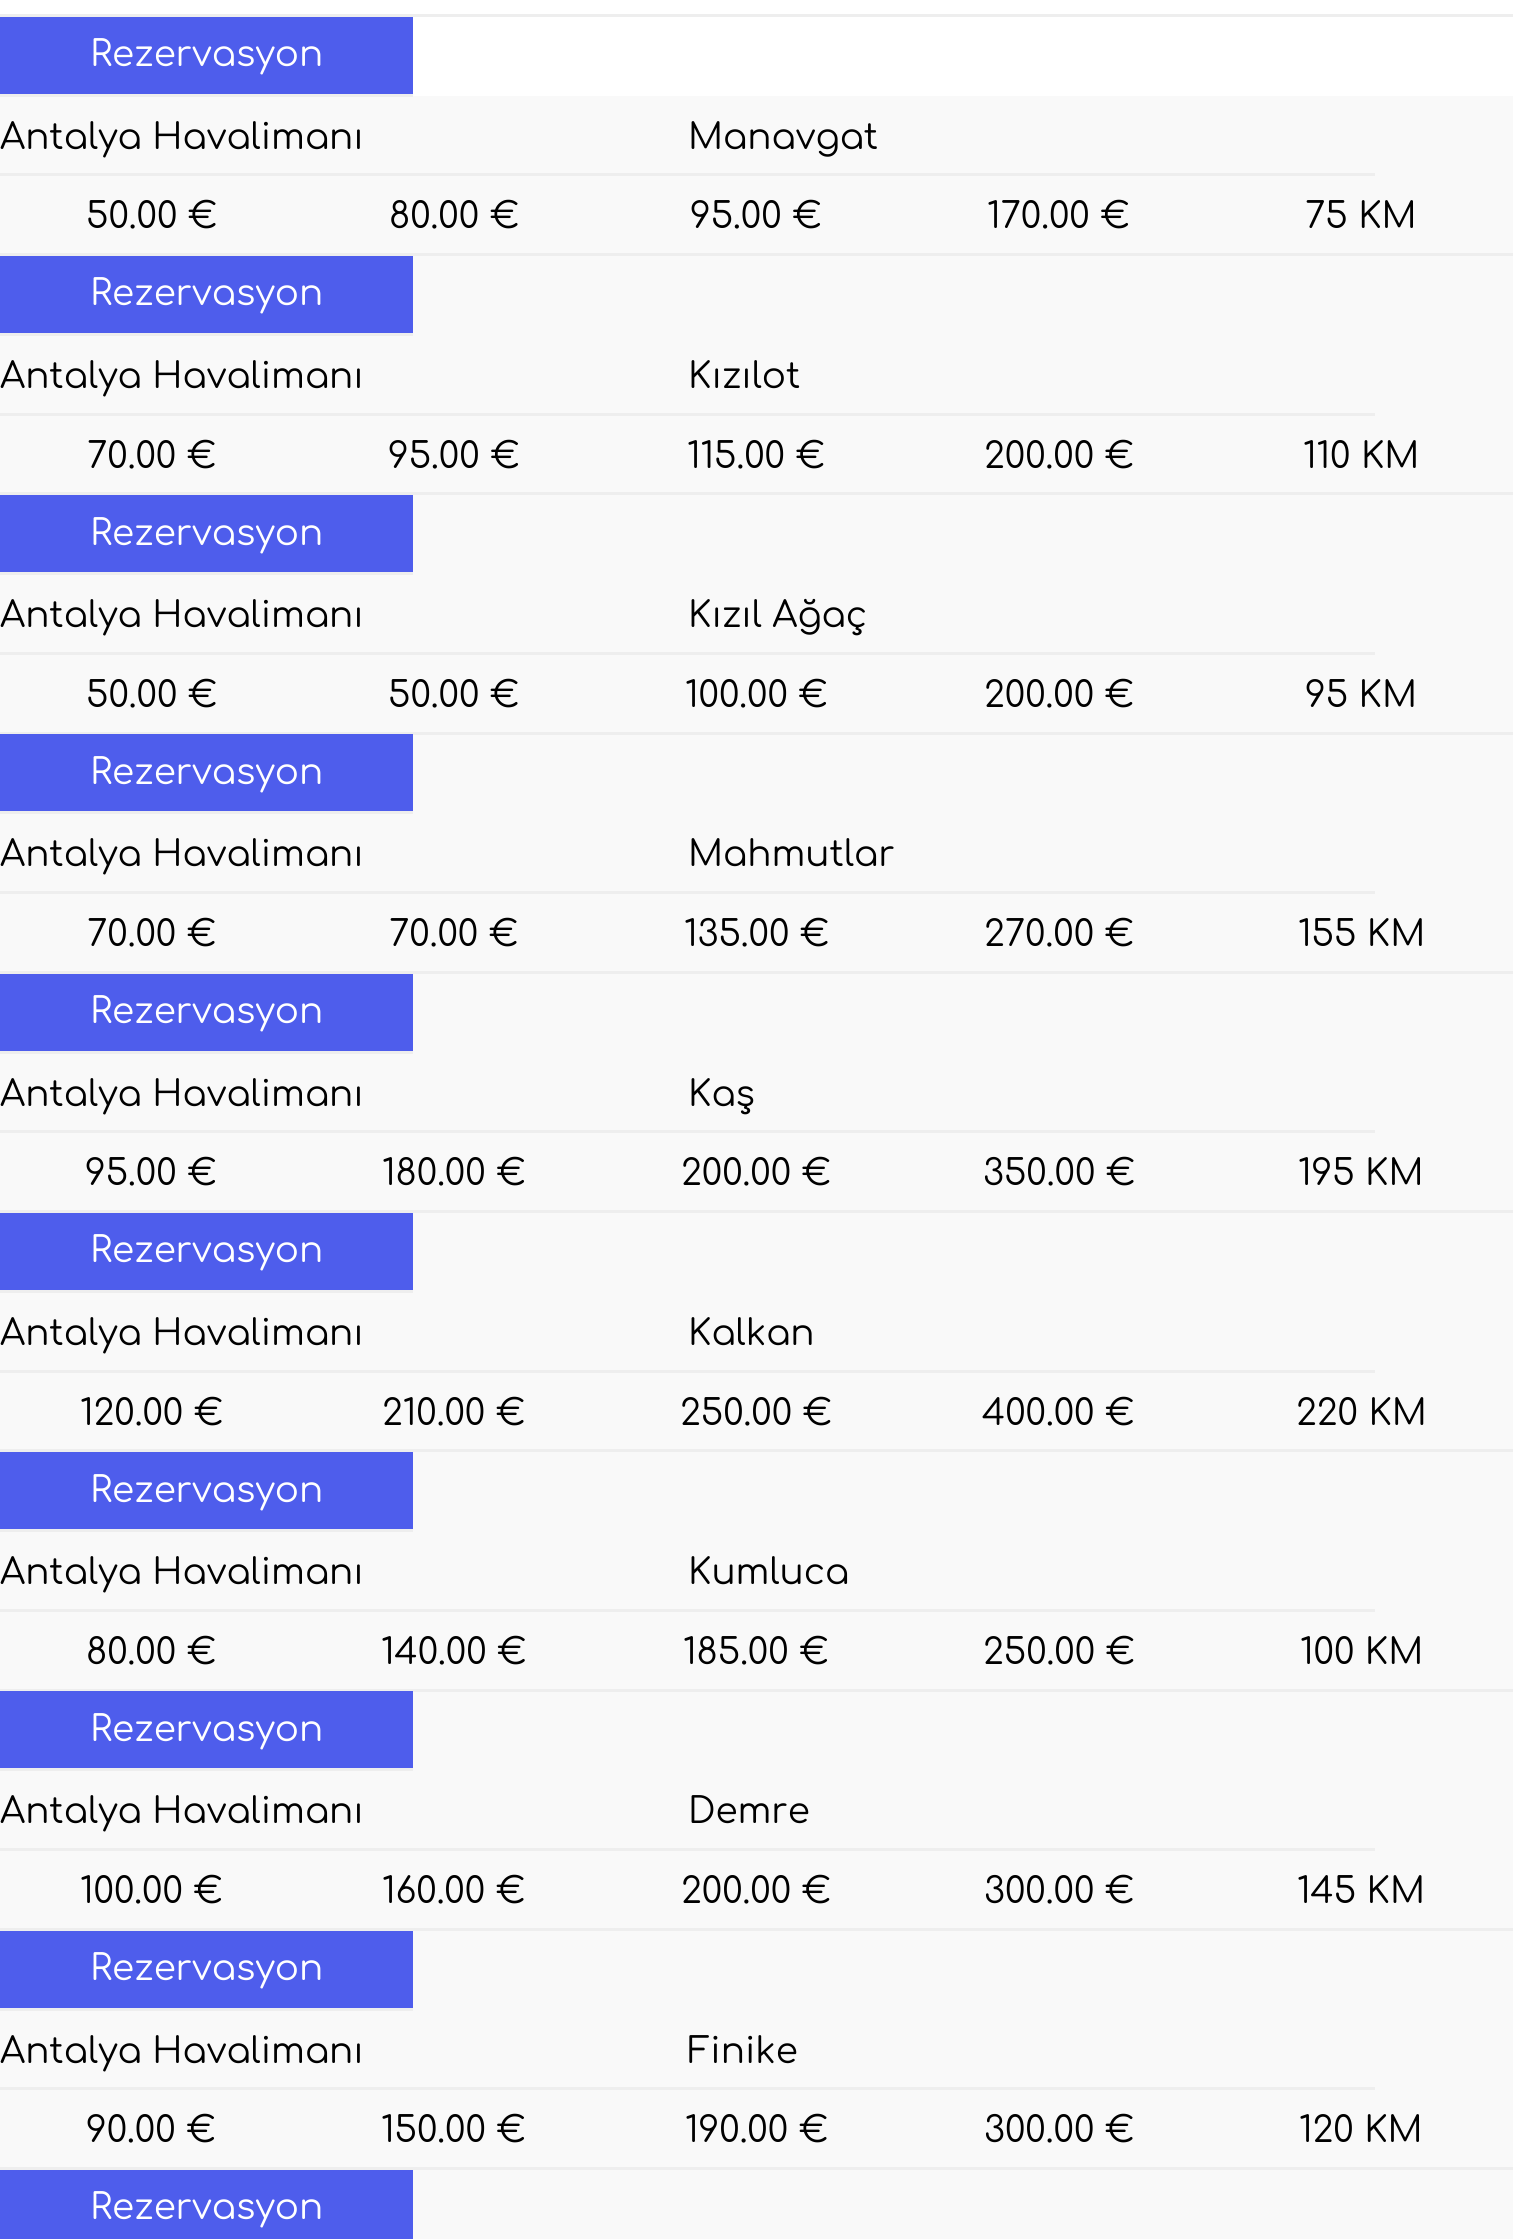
import math
import cairo


def use_color(cr, r, g, b):
  cr.set_source_rgb(r / 255, g / 255, b / 255)

def text(cr, x, y, s, family, size, color, bold=False, italic=False):
  cr.select_font_face(family, cairo.FONT_SLANT_ITALIC if italic else cairo.FONT_SLANT_NORMAL, cairo.FONT_WEIGHT_BOLD if bold else cairo.FONT_WEIGHT_NORMAL)
  cr.set_font_size(size)
  use_color(cr, *color)
  cr.move_to(x, y)
  cr.show_text(s)

def box(cr, x, y, w, h, *color):
  use_color(cr, *color)
  cr.rectangle(x, y, w, h)
  cr.fill()

def draw(cr):
  use_color(cr, 249, 249, 249)
  cr.paint()
  box(cr, 0, 0, 1513, 96, 255, 255, 255)
  box(cr, 0, 14, 1513, 3, 238, 238, 238)
  box(cr, 0, 94, 413, 3, 238, 238, 238)
  box(cr, 0, 17, 413, 77, 78, 93, 236)
  box(cr, 0, 173, 1375, 3, 238, 238, 238)
  box(cr, 0, 253, 1513, 3, 238, 238, 238)
  box(cr, 0, 333, 413, 3, 238, 238, 238)
  box(cr, 0, 256, 413, 77, 78, 93, 236)
  box(cr, 0, 413, 1375, 3, 238, 238, 238)
  box(cr, 0, 492, 1513, 3, 238, 238, 238)
  box(cr, 0, 572, 413, 3, 238, 238, 238)
  box(cr, 0, 495, 413, 77, 78, 93, 236)
  box(cr, 0, 652, 1375, 3, 238, 238, 238)
  box(cr, 0, 732, 303, 2, 238, 238, 238)
  box(cr, 303, 732, 1210, 3, 238, 238, 238)
  box(cr, 0, 811, 413, 3, 238, 238, 238)
  box(cr, 0, 734, 413, 77, 78, 93, 236)
  box(cr, 0, 891, 1375, 3, 238, 238, 238)
  box(cr, 0, 971, 1513, 3, 238, 238, 238)
  box(cr, 0, 1051, 413, 3, 238, 238, 238)
  box(cr, 0, 974, 413, 77, 78, 93, 236)
  box(cr, 0, 1130, 1375, 3, 238, 238, 238)
  box(cr, 0, 1210, 1513, 3, 238, 238, 238)
  box(cr, 0, 1290, 413, 3, 238, 238, 238)
  box(cr, 0, 1213, 413, 77, 78, 93, 236)
  box(cr, 0, 1370, 1375, 3, 238, 238, 238)
  box(cr, 0, 1449, 1513, 3, 238, 238, 238)
  box(cr, 0, 1529, 413, 3, 238, 238, 238)
  box(cr, 0, 1452, 413, 77, 78, 93, 236)
  box(cr, 0, 1609, 1375, 3, 238, 238, 238)
  box(cr, 0, 1689, 303, 2, 238, 238, 238)
  box(cr, 303, 1689, 1210, 3, 238, 238, 238)
  box(cr, 0, 1768, 413, 3, 238, 238, 238)
  box(cr, 0, 1691, 413, 77, 78, 93, 236)
  box(cr, 0, 1848, 1375, 3, 238, 238, 238)
  box(cr, 0, 1928, 1513, 3, 238, 238, 238)
  box(cr, 0, 2008, 413, 3, 238, 238, 238)
  box(cr, 0, 1931, 413, 77, 78, 93, 236)
  box(cr, 0, 2087, 1375, 3, 238, 238, 238)
  box(cr, 0, 2167, 1513, 3, 238, 238, 238)
  box(cr, 0, 2170, 413, 69, 78, 93, 236)
  text(cr, 90, 66, "Rezervasyon", "Comfortaa", 35.75, (255, 255, 255))
  text(cr, 0, 149, "Antalya Havalimanı", "Comfortaa", 35.75, (0, 0, 0))
  text(cr, 688, 149, "Manavgat", "Comfortaa", 35.75, (0, 0, 0))
  text(cr, 86, 228, "50.00 €", "Comfortaa", 35.75, (0, 0, 0))
  text(cr, 389, 228, "80.00 €", "Comfortaa", 35.75, (0, 0, 0))
  text(cr, 690, 228, "95.00 €", "Comfortaa", 35.75, (0, 0, 0))
  text(cr, 987, 228, "170.00 €", "Comfortaa", 35.75, (0, 0, 0))
  text(cr, 1305, 228, "75 KM", "Comfortaa", 35.75, (0, 0, 0))
  text(cr, 90, 305, "Rezervasyon", "Comfortaa", 35.75, (255, 255, 255))
  text(cr, 0, 388, "Antalya Havalimanı", "Comfortaa", 35.75, (0, 0, 0))
  text(cr, 688, 388, "Kızılot", "Comfortaa", 35.75, (0, 0, 0))
  text(cr, 87, 468, "70.00 €", "Comfortaa", 35.75, (0, 0, 0))
  text(cr, 388, 468, "95.00 €", "Comfortaa", 35.75, (0, 0, 0))
  text(cr, 687, 468, "115.00 €", "Comfortaa", 35.75, (0, 0, 0))
  text(cr, 984, 468, "200.00 €", "Comfortaa", 35.75, (0, 0, 0))
  text(cr, 1303, 468, "110 KM", "Comfortaa", 35.75, (0, 0, 0))
  text(cr, 90, 545, "Rezervasyon", "Comfortaa", 35.75, (255, 255, 255))
  text(cr, 0, 627, "Antalya Havalimanı", "Comfortaa", 35.75, (0, 0, 0))
  text(cr, 688, 627, "Kızıl Ağaç", "Comfortaa", 35.75, (0, 0, 0))
  text(cr, 86, 707, "50.00 €", "Comfortaa", 35.75, (0, 0, 0))
  text(cr, 388, 707, "50.00 €", "Comfortaa", 35.75, (0, 0, 0))
  text(cr, 685, 707, "100.00 €", "Comfortaa", 35.75, (0, 0, 0))
  text(cr, 984, 707, "200.00 €", "Comfortaa", 35.75, (0, 0, 0))
  text(cr, 1305, 707, "95 KM", "Comfortaa", 35.75, (0, 0, 0))
  text(cr, 90, 784, "Rezervasyon", "Comfortaa", 35.75, (255, 255, 255))
  text(cr, 0, 866, "Antalya Havalimanı", "Comfortaa", 35.75, (0, 0, 0))
  text(cr, 688, 866, "Mahmutlar", "Comfortaa", 35.75, (0, 0, 0))
  text(cr, 87, 946, "70.00 €", "Comfortaa", 35.75, (0, 0, 0))
  text(cr, 389, 946, "70.00 €", "Comfortaa", 35.75, (0, 0, 0))
  text(cr, 684, 946, "135.00 €", "Comfortaa", 35.75, (0, 0, 0))
  text(cr, 984, 946, "270.00 €", "Comfortaa", 35.75, (0, 0, 0))
  text(cr, 1298, 946, "155 KM", "Comfortaa", 35.75, (0, 0, 0))
  text(cr, 90, 1023, "Rezervasyon", "Comfortaa", 35.75, (255, 255, 255))
  text(cr, 0, 1106, "Antalya Havalimanı", "Comfortaa", 35.75, (0, 0, 0))
  text(cr, 688, 1106, "Kaş", "Comfortaa", 35.75, (0, 0, 0))
  text(cr, 85, 1185, "95.00 €", "Comfortaa", 35.75, (0, 0, 0))
  text(cr, 382, 1185, "180.00 €", "Comfortaa", 35.75, (0, 0, 0))
  text(cr, 681, 1185, "200.00 €", "Comfortaa", 35.75, (0, 0, 0))
  text(cr, 983, 1185, "350.00 €", "Comfortaa", 35.75, (0, 0, 0))
  text(cr, 1298, 1185, "195 KM", "Comfortaa", 35.75, (0, 0, 0))
  text(cr, 90, 1262, "Rezervasyon", "Comfortaa", 35.75, (255, 255, 255))
  text(cr, 0, 1345, "Antalya Havalimanı", "Comfortaa", 35.75, (0, 0, 0))
  text(cr, 688, 1345, "Kalkan", "Comfortaa", 35.75, (0, 0, 0))
  text(cr, 80, 1425, "120.00 €", "Comfortaa", 35.75, (0, 0, 0))
  text(cr, 382, 1425, "210.00 €", "Comfortaa", 35.75, (0, 0, 0))
  text(cr, 680, 1425, "250.00 €", "Comfortaa", 35.75, (0, 0, 0))
  text(cr, 982, 1425, "400.00 €", "Comfortaa", 35.75, (0, 0, 0))
  text(cr, 1296, 1425, "220 KM", "Comfortaa", 35.75, (0, 0, 0))
  text(cr, 90, 1502, "Rezervasyon", "Comfortaa", 35.75, (255, 255, 255))
  text(cr, 0, 1584, "Antalya Havalimanı", "Comfortaa", 35.75, (0, 0, 0))
  text(cr, 688, 1584, "Kumluca", "Comfortaa", 35.75, (0, 0, 0))
  text(cr, 86, 1664, "80.00 €", "Comfortaa", 35.75, (0, 0, 0))
  text(cr, 381, 1664, "140.00 €", "Comfortaa", 35.75, (0, 0, 0))
  text(cr, 683, 1664, "185.00 €", "Comfortaa", 35.75, (0, 0, 0))
  text(cr, 983, 1664, "250.00 €", "Comfortaa", 35.75, (0, 0, 0))
  text(cr, 1300, 1664, "100 KM", "Comfortaa", 35.75, (0, 0, 0))
  text(cr, 90, 1741, "Rezervasyon", "Comfortaa", 35.75, (255, 255, 255))
  text(cr, 0, 1823, "Antalya Havalimanı", "Comfortaa", 35.75, (0, 0, 0))
  text(cr, 688, 1823, "Demre", "Comfortaa", 35.75, (0, 0, 0))
  text(cr, 80, 1903, "100.00 €", "Comfortaa", 35.75, (0, 0, 0))
  text(cr, 382, 1903, "160.00 €", "Comfortaa", 35.75, (0, 0, 0))
  text(cr, 681, 1903, "200.00 €", "Comfortaa", 35.75, (0, 0, 0))
  text(cr, 984, 1903, "300.00 €", "Comfortaa", 35.75, (0, 0, 0))
  text(cr, 1297, 1903, "145 KM", "Comfortaa", 35.75, (0, 0, 0))
  text(cr, 90, 1980, "Rezervasyon", "Comfortaa", 35.75, (255, 255, 255))
  text(cr, 0, 2063, "Antalya Havalimanı", "Comfortaa", 35.75, (0, 0, 0))
  text(cr, 688, 2063, "Finike", "Comfortaa", 35.75, (0, 0, 0))
  text(cr, 86, 2142, "90.00 €", "Comfortaa", 35.75, (0, 0, 0))
  text(cr, 381, 2142, "150.00 €", "Comfortaa", 35.75, (0, 0, 0))
  text(cr, 685, 2142, "190.00 €", "Comfortaa", 35.75, (0, 0, 0))
  text(cr, 984, 2142, "300.00 €", "Comfortaa", 35.75, (0, 0, 0))
  text(cr, 1299, 2142, "120 KM", "Comfortaa", 35.75, (0, 0, 0))
  text(cr, 90, 2219, "Rezervasyon", "Comfortaa", 35.75, (255, 255, 255))


surface = cairo.ImageSurface(cairo.FORMAT_RGB24, 1513, 2239)
cr = cairo.Context(surface)
options = cairo.FontOptions()
options.set_hint_metrics(cairo.HINT_METRICS_OFF)
options.set_hint_style(cairo.HINT_STYLE_NONE)
cr.set_font_options(options)
cr.set_miter_limit(4)
draw(cr)
surface.write_to_png("out.png")
